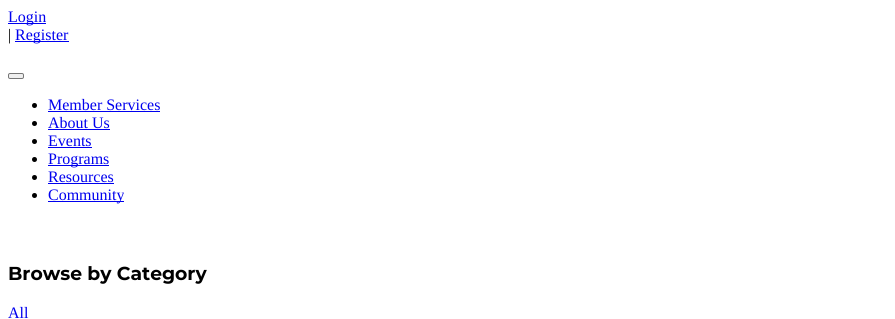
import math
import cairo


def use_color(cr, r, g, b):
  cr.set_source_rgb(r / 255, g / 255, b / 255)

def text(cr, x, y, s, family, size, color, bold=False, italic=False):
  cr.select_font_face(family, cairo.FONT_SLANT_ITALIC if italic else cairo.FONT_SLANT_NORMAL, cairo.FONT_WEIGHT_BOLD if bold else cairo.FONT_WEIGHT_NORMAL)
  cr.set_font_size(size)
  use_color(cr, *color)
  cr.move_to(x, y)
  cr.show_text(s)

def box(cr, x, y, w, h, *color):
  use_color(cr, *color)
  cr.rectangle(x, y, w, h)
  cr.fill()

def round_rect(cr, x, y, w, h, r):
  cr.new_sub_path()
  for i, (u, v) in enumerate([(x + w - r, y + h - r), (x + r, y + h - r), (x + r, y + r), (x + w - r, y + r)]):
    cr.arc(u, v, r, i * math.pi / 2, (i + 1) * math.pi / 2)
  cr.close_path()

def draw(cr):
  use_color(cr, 255, 255, 255)
  cr.paint()
  box(cr, 8, 23, 38, 1, 0, 0, 238)
  box(cr, 15, 41, 54, 1, 0, 0, 238)
  use_color(cr, 239, 239, 239)
  round_rect(cr, 8.5, 73.5, 15, 5, 1.5)
  cr.fill_preserve()
  use_color(cr, 118, 118, 118)
  cr.set_line_width(1)
  cr.stroke()
  use_color(cr, 0, 0, 0)
  cr.arc(34.5, 105.5, 2.5, 0, 2 * math.pi)
  cr.fill()
  box(cr, 48, 111, 112, 1, 0, 0, 238)
  use_color(cr, 0, 0, 0)
  cr.arc(34.5, 123.5, 2.5, 0, 2 * math.pi)
  cr.fill()
  box(cr, 48, 129, 62, 1, 0, 0, 238)
  use_color(cr, 0, 0, 0)
  cr.arc(34.5, 141.5, 2.5, 0, 2 * math.pi)
  cr.fill()
  box(cr, 48, 147, 44, 1, 0, 0, 238)
  use_color(cr, 0, 0, 0)
  cr.arc(34.5, 159.5, 2.5, 0, 2 * math.pi)
  cr.fill()
  box(cr, 48, 165, 61, 1, 0, 0, 238)
  use_color(cr, 0, 0, 0)
  cr.arc(34.5, 177.5, 2.5, 0, 2 * math.pi)
  cr.fill()
  box(cr, 48, 183, 66, 1, 0, 0, 238)
  use_color(cr, 0, 0, 0)
  cr.arc(34.5, 195.5, 2.5, 0, 2 * math.pi)
  cr.fill()
  box(cr, 48, 201, 76, 1, 0, 0, 238)
  text(cr, 8, 22, "Login", "Liberation Serif", 16, (0, 0, 238))
  text(cr, 8, 40, "|", "Liberation Serif", 16, (0, 0, 0))
  text(cr, 15, 40, "Register", "Liberation Serif", 16, (0, 0, 238))
  text(cr, 48, 110, "Member Services", "Liberation Serif", 16, (0, 0, 238))
  text(cr, 48, 128, "About Us", "Liberation Serif", 16, (0, 0, 238))
  text(cr, 48, 146, "Events", "Liberation Serif", 16, (0, 0, 238))
  text(cr, 48, 164, "Programs", "Liberation Serif", 16, (0, 0, 238))
  text(cr, 48, 182, "Resources", "Liberation Serif", 16, (0, 0, 238))
  text(cr, 48, 200, "Community", "Liberation Serif", 16, (0, 0, 238))
  text(cr, 8, 280, "Browse by Category", "Montserrat", 18.75, (0, 0, 0), bold=True)
  text(cr, 8, 318, "All", "Liberation Serif", 16, (0, 0, 238))


surface = cairo.ImageSurface(cairo.FORMAT_RGB24, 895, 319)
cr = cairo.Context(surface)
options = cairo.FontOptions()
options.set_hint_metrics(cairo.HINT_METRICS_OFF)
options.set_hint_style(cairo.HINT_STYLE_NONE)
cr.set_font_options(options)
cr.set_miter_limit(4)
draw(cr)
surface.write_to_png("out.png")
